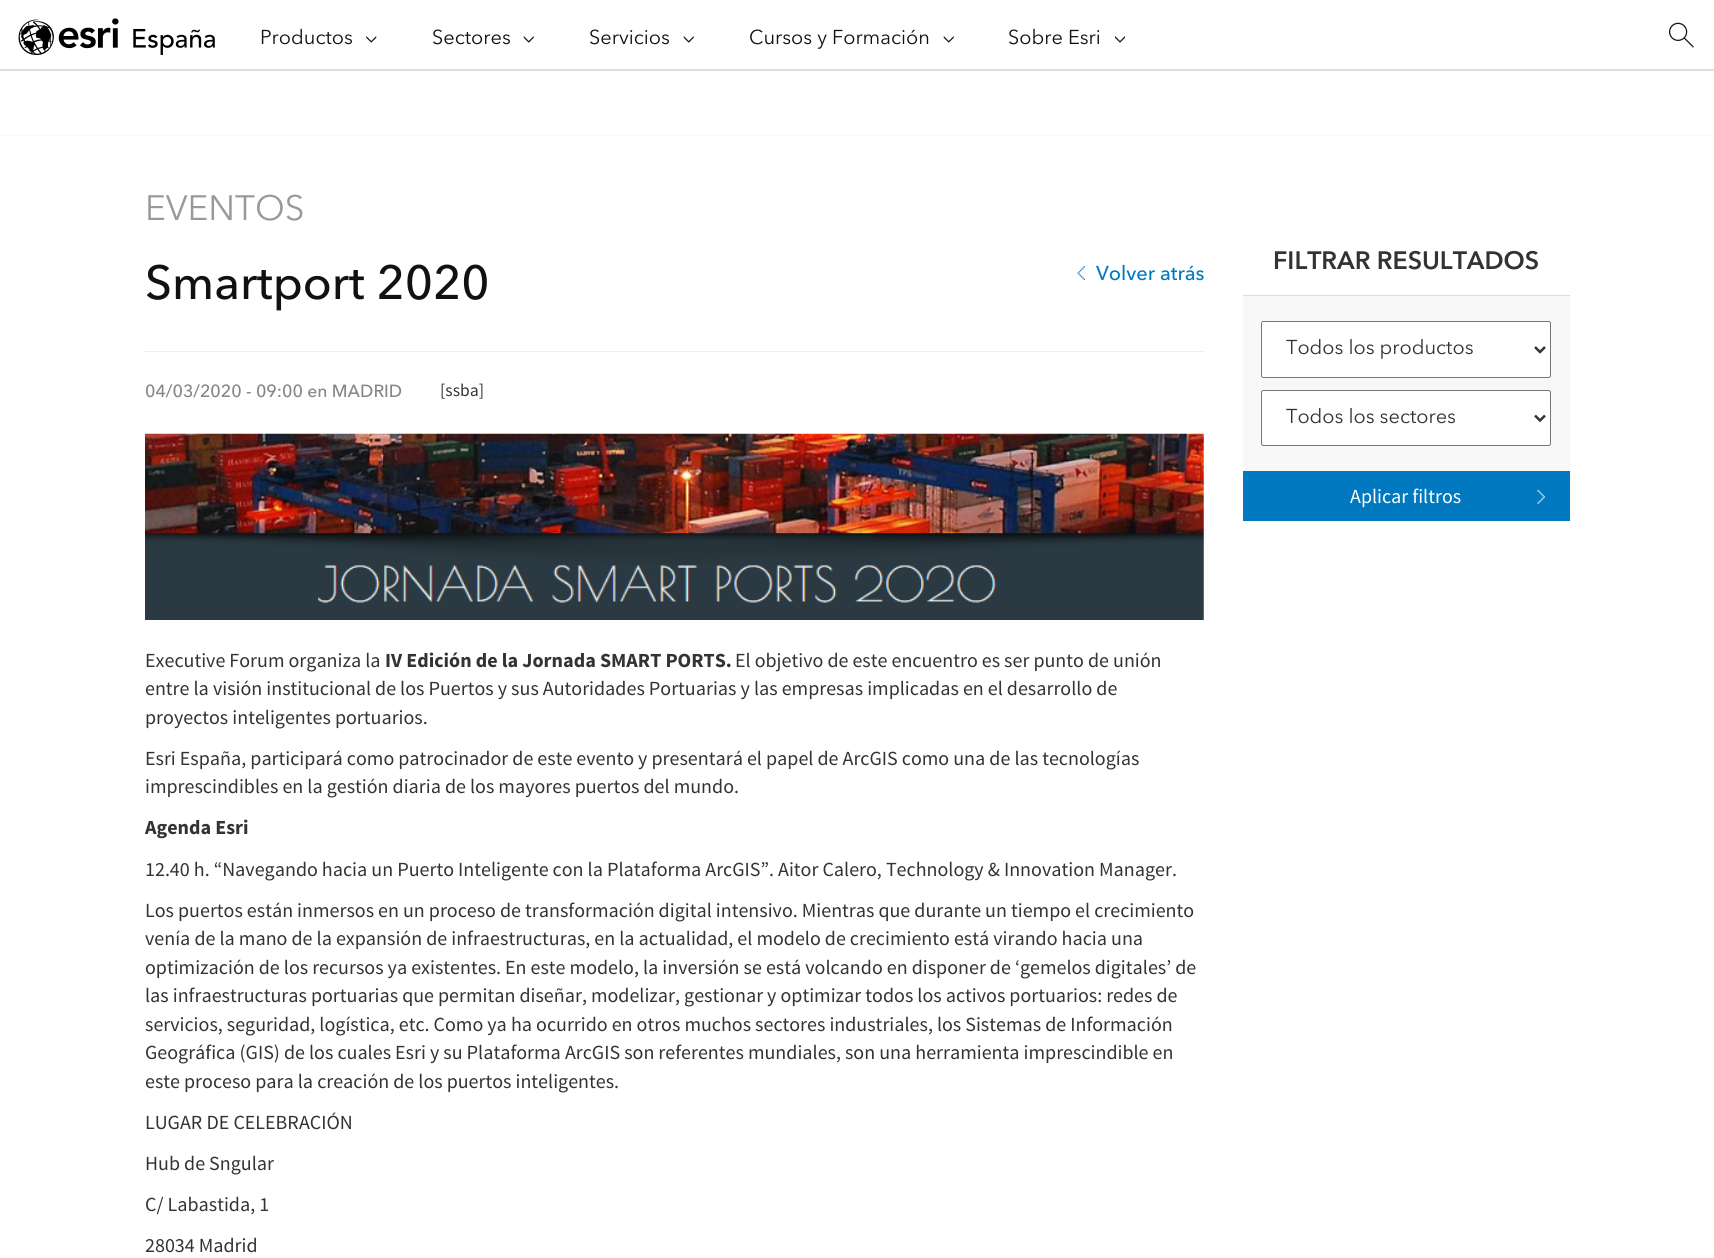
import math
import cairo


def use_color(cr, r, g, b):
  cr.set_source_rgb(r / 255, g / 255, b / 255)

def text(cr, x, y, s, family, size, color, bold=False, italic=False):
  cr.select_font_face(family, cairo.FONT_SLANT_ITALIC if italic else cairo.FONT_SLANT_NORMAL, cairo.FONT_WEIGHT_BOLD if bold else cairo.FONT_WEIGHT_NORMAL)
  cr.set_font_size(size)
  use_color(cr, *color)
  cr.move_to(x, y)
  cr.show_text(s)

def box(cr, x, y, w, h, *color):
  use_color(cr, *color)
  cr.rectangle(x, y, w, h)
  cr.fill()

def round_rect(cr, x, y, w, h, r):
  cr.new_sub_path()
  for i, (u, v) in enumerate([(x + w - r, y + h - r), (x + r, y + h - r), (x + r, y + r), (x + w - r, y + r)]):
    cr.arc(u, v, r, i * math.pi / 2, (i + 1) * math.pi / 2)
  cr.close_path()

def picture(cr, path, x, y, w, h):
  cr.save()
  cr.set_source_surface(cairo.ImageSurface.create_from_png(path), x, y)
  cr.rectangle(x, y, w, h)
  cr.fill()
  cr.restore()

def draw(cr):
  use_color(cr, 255, 255, 255)
  cr.paint()
  box(cr, 0, 69, 1714, 1, 223, 223, 223)
  picture(cr, "img_01.png", 18, 18, 197, 37)
  picture(cr, "img_02.png", 366, 36, 11, 7)
  picture(cr, "img_03.png", 523, 36, 11, 7)
  picture(cr, "img_03.png", 683, 36, 11, 7)
  picture(cr, "img_03.png", 943, 36, 11, 7)
  picture(cr, "img_04.png", 1115, 36, 10, 7)
  picture(cr, "img_05.png", 1669, 22, 25, 26)
  box(cr, 0, 70, 1714, 1, 221, 221, 221)
  box(cr, 0, 135, 1714, 1, 248, 248, 248)
  picture(cr, "img_06.png", 1077, 266, 8, 14)
  box(cr, 145, 351, 1060, 1, 238, 238, 238)
  picture(cr, "img_07.png", 145, 433, 1059, 187)
  box(cr, 1243, 295, 327, 1, 221, 221, 221)
  box(cr, 1243, 296, 327, 175, 248, 248, 248)
  use_color(cr, 255, 255, 255)
  round_rect(cr, 1261.5, 321.5, 289, 56, 2)
  cr.fill_preserve()
  use_color(cr, 118, 118, 118)
  cr.set_line_width(1)
  cr.stroke()
  cr.new_path()
  cr.move_to(1535, 347)
  cr.line_to(1540, 352)
  cr.line_to(1545, 347)
  use_color(cr, 51, 51, 51)
  cr.set_line_width(2.5)
  cr.stroke()
  use_color(cr, 255, 255, 255)
  round_rect(cr, 1261.5, 390.5, 289, 55, 2)
  cr.fill_preserve()
  use_color(cr, 118, 118, 118)
  cr.set_line_width(1)
  cr.stroke()
  cr.new_path()
  cr.move_to(1535, 415.5)
  cr.line_to(1540, 420.5)
  cr.line_to(1545, 415.5)
  use_color(cr, 51, 51, 51)
  cr.set_line_width(2.5)
  cr.stroke()
  box(cr, 1243, 471, 327, 50, 0, 121, 193)
  picture(cr, "img_08.png", 1537, 490, 8, 14)
  text(cr, 260, 44, "Productos", "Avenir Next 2", 20, (17, 17, 17))
  text(cr, 432, 44, "Sectores", "Avenir Next 2", 20, (17, 17, 17))
  text(cr, 589, 44, "Servicios", "Avenir Next 2", 20, (17, 17, 17))
  text(cr, 749, 44, "Cursos y Formación", "Avenir Next 2", 20, (17, 17, 17))
  text(cr, 1008, 44, "Sobre Esri", "Avenir Next 2", 20, (17, 17, 17))
  text(cr, 145, 220, "EVENTOS", "Avenir Next", 35, (153, 153, 153))
  text(cr, 145, 299, "Smartport 2020", "Avenir Next Medium", 47.5, (17, 17, 17))
  text(cr, 1096, 280, "Volver atrás", "Avenir Next Medium", 20, (0, 121, 193))
  text(cr, 145, 397, "04/03/2020 - 09:00 en MADRID", "Avenir Next Medium", 17.5, (134, 134, 134))
  text(cr, 440, 396, "[ssba]", "Source Sans Pro", 17.5, (51, 51, 51))
  text(cr, 145, 667, "Executive Forum organiza la", "Source Sans Pro", 20, (51, 51, 51))
  text(cr, 385, 667, "IV Edición de la Jornada SMART PORTS.", "Source Sans Pro", 20, (51, 51, 51), bold=True)
  text(cr, 735, 667, "El objetivo de este encuentro es ser punto de unión", "Source Sans Pro", 20, (51, 51, 51))
  text(cr, 145, 695, "entre la visión institucional de los Puertos y sus Autoridades Portuarias y las empresas implicadas en el desarrollo de", "Source Sans Pro", 20, (51, 51, 51))
  text(cr, 145, 724, "proyectos inteligentes portuarios.", "Source Sans Pro", 20, (51, 51, 51))
  text(cr, 145, 765, "Esri España, participará como patrocinador de este evento y presentará el papel de ArcGIS como una de las tecnologías", "Source Sans Pro", 20, (51, 51, 51))
  text(cr, 145, 793, "imprescindibles en la gestión diaria de los mayores puertos del mundo.", "Source Sans Pro", 20, (51, 51, 51))
  text(cr, 145, 834, "Agenda Esri", "Source Sans Pro", 20, (51, 51, 51), bold=True)
  text(cr, 145, 876, "12.40 h. “Navegando hacia un Puerto Inteligente con la Plataforma ArcGIS”. Aitor Calero, Technology & Innovation Manager.", "Source Sans Pro", 20, (51, 51, 51))
  text(cr, 145, 917, "Los puertos están inmersos en un proceso de transformación digital intensivo. Mientras que durante un tiempo el crecimiento", "Source Sans Pro", 20, (51, 51, 51))
  text(cr, 145, 945, "venía de la mano de la expansión de infraestructuras, en la actualidad, el modelo de crecimiento está virando hacia una", "Source Sans Pro", 20, (51, 51, 51))
  text(cr, 145, 974, "optimización de los recursos ya existentes. En este modelo, la inversión se está volcando en disponer de ‘gemelos digitales’ de", "Source Sans Pro", 20, (51, 51, 51))
  text(cr, 145, 1002, "las infraestructuras portuarias que permitan diseñar, modelizar, gestionar y optimizar todos los activos portuarios: redes de", "Source Sans Pro", 20, (51, 51, 51))
  text(cr, 145, 1031, "servicios, seguridad, logística, etc. Como ya ha ocurrido en otros muchos sectores industriales, los Sistemas de Información", "Source Sans Pro", 20, (51, 51, 51))
  text(cr, 145, 1059, "Geográfica (GIS) de los cuales Esri y su Plataforma ArcGIS son referentes mundiales, son una herramienta imprescindible en", "Source Sans Pro", 20, (51, 51, 51))
  text(cr, 145, 1088, "este proceso para la creación de los puertos inteligentes.", "Source Sans Pro", 20, (51, 51, 51))
  text(cr, 145, 1129, "LUGAR DE CELEBRACIÓN", "Source Sans Pro", 20, (51, 51, 51))
  text(cr, 145, 1170, "Hub de Sngular", "Source Sans Pro", 20, (51, 51, 51))
  text(cr, 145, 1211, "C/ Labastida, 1", "Source Sans Pro", 20, (51, 51, 51))
  text(cr, 145, 1252, "28034 Madrid", "Source Sans Pro", 20, (51, 51, 51))
  text(cr, 1273, 269, "FILTRAR RESULTADOS", "Avenir Next SemiBold", 25, (51, 51, 51))
  cr.save()
  cr.rectangle(1286, 339, 225, 22)
  cr.clip()
  text(cr, 1286, 354, "Todos los productos", "Avenir Next", 20, (51, 51, 51))
  cr.restore()
  cr.save()
  cr.rectangle(1286, 408, 225, 22)
  cr.clip()
  text(cr, 1286, 423, "Todos los sectores", "Avenir Next", 20, (51, 51, 51))
  cr.restore()
  text(cr, 1350, 503, "Aplicar filtros", "Source Sans Pro", 20, (255, 255, 255))


surface = cairo.ImageSurface(cairo.FORMAT_RGB24, 1714, 1258)
cr = cairo.Context(surface)
options = cairo.FontOptions()
options.set_hint_metrics(cairo.HINT_METRICS_OFF)
options.set_hint_style(cairo.HINT_STYLE_NONE)
cr.set_font_options(options)
cr.set_miter_limit(4)
draw(cr)
surface.write_to_png("out.png")
